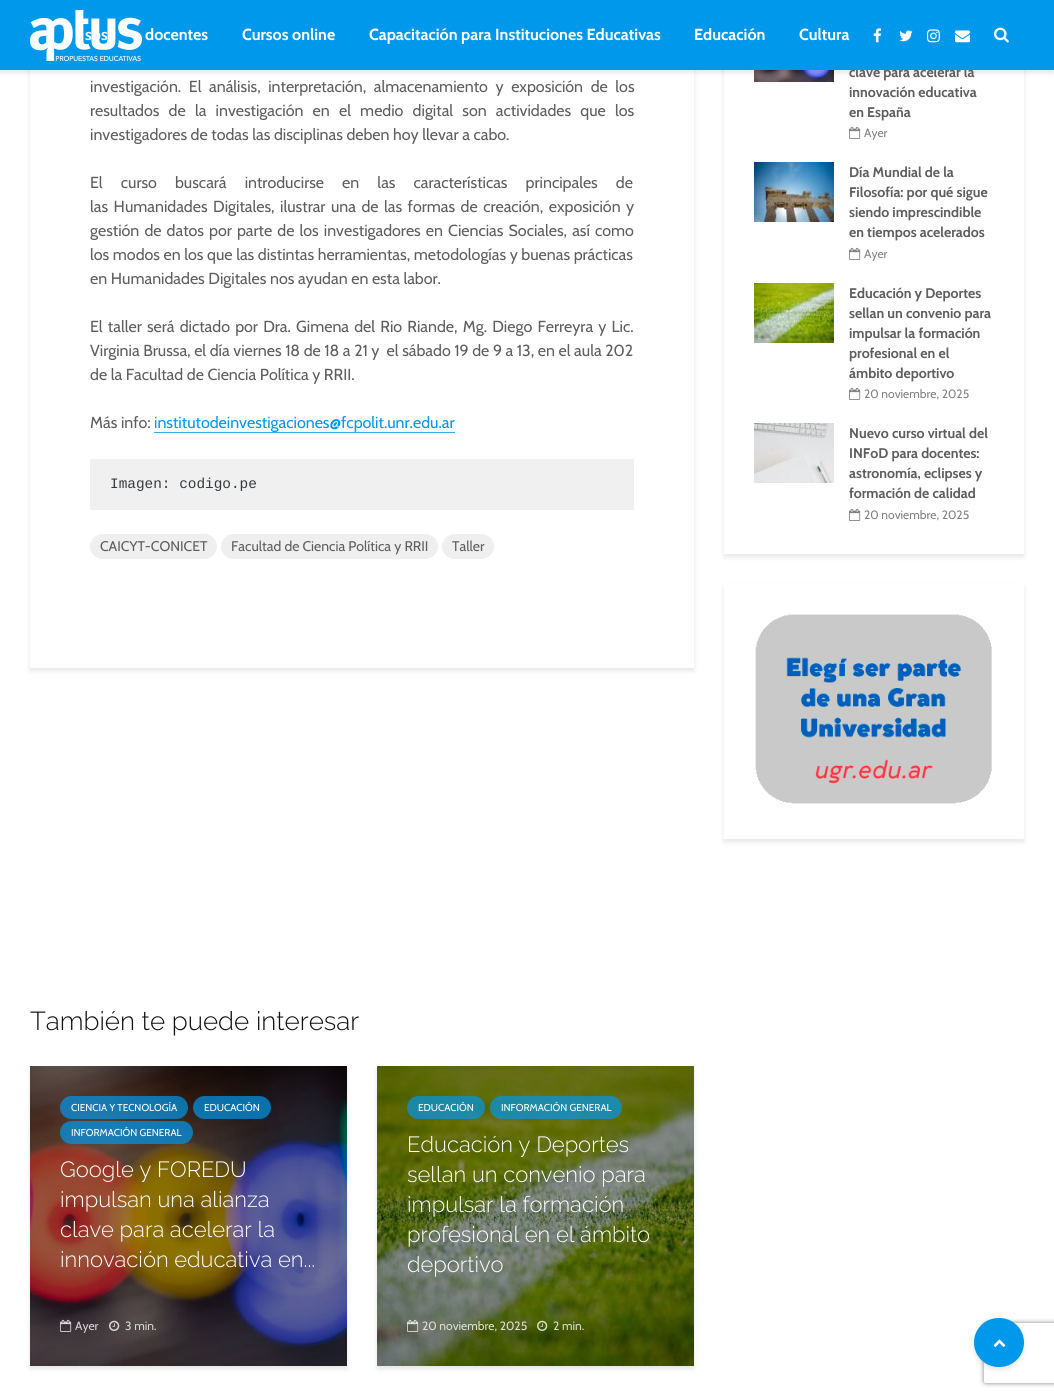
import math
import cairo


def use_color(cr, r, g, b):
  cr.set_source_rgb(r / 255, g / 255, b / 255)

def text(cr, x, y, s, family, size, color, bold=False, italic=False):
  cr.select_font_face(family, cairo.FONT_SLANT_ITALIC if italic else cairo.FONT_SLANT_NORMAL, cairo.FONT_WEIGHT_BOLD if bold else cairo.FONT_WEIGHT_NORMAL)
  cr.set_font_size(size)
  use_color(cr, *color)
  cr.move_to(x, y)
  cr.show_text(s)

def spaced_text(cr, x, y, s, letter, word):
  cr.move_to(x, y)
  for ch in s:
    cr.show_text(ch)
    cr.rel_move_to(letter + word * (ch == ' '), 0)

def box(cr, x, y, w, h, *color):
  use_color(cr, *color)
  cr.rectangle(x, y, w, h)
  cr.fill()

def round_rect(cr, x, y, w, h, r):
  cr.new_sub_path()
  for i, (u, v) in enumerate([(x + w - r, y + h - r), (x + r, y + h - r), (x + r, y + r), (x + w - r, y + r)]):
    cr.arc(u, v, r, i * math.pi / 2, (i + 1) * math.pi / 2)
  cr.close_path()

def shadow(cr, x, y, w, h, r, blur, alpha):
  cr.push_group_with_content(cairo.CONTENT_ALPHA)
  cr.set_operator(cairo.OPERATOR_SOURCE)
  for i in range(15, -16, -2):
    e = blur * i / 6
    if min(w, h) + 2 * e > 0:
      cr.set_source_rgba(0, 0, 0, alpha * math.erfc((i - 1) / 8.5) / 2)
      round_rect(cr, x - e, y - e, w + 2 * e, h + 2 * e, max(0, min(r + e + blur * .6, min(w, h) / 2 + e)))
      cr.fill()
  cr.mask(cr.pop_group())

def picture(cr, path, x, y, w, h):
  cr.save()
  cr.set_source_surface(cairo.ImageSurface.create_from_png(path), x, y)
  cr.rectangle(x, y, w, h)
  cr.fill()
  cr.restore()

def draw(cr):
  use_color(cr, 255, 255, 255)
  cr.paint()
  cr.save()
  cr.set_fill_rule(cairo.FILL_RULE_EVEN_ODD)
  cr.new_path()
  cr.move_to(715, 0)
  cr.line_to(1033, 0)
  cr.line_to(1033, 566)
  cr.line_to(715, 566)
  cr.close_path()
  cr.move_to(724, -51)
  cr.line_to(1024, -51)
  cr.line_to(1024, 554)
  cr.line_to(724, 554)
  cr.close_path()
  cr.clip()
  use_color(cr, 0, 1, 1)
  shadow(cr, 724, -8, 300, 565, 0, 2.5, 0.1)
  cr.restore()
  picture(cr, "img_13.png", 754, 70, 80, 12)
  use_color(cr, 0, 1, 1)
  shadow(cr, 0, 3, 1054, 70, 0, 2.5, 0.1)
  cr.save()
  cr.set_fill_rule(cairo.FILL_RULE_EVEN_ODD)
  cr.new_path()
  cr.move_to(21, 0)
  cr.line_to(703, 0)
  cr.line_to(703, 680)
  cr.line_to(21, 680)
  cr.close_path()
  cr.move_to(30, -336)
  cr.line_to(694, -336)
  cr.line_to(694, 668)
  cr.line_to(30, 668)
  cr.close_path()
  cr.clip()
  shadow(cr, 30, -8, 664, 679, 0, 2.5, 0.1)
  cr.restore()
  box(cr, 154, 432, 301, 1, 51, 173, 239)
  box(cr, 90, 459, 544, 51, 240, 240, 240)
  use_color(cr, 239, 239, 239)
  round_rect(cr, 90, 534, 127, 25, 12.5)
  cr.fill()
  round_rect(cr, 221, 534, 217, 25, 12.5)
  cr.fill()
  round_rect(cr, 442, 534, 52, 25, 12.5)
  cr.fill()
  use_color(cr, 0, 1, 1)
  shadow(cr, 30, 1069, 317, 300, 0, 2.5, 0.1)
  picture(cr, "img_07.png", 30, 1066, 317, 300)
  cr.set_source_rgba(0, 0.596, 0.922, 0.7)
  round_rect(cr, 60, 1096, 128, 23, 11.5)
  cr.fill()
  round_rect(cr, 193, 1096, 78, 23, 11.5)
  cr.fill()
  round_rect(cr, 60, 1121, 133, 23, 11.5)
  cr.fill()
  picture(cr, "img_08.png", 60, 1319, 12, 13)
  picture(cr, "img_09.png", 109, 1320, 11, 11)
  use_color(cr, 0, 1, 1)
  shadow(cr, 377, 1069, 317, 300, 0, 2.5, 0.1)
  picture(cr, "img_10.png", 377, 1066, 317, 300)
  cr.set_source_rgba(0, 0.596, 0.922, 0.7)
  round_rect(cr, 407, 1096, 78, 23, 11.5)
  cr.fill()
  round_rect(cr, 490, 1096, 132, 23, 11.5)
  cr.fill()
  picture(cr, "img_11.png", 407, 1319, 12, 13)
  picture(cr, "img_12.png", 537, 1320, 11, 11)
  picture(cr, "img_14.png", 849, 126, 12, 13)
  picture(cr, "img_15.png", 754, 162, 80, 60)
  picture(cr, "img_14.png", 849, 247, 12, 13)
  picture(cr, "img_16.png", 754, 283, 80, 60)
  picture(cr, "img_14.png", 849, 387, 12, 13)
  picture(cr, "img_17.png", 754, 423, 80, 60)
  picture(cr, "img_14.png", 849, 508, 12, 13)
  cr.save()
  cr.set_fill_rule(cairo.FILL_RULE_EVEN_ODD)
  cr.new_path()
  cr.move_to(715, 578)
  cr.line_to(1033, 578)
  cr.line_to(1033, 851)
  cr.line_to(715, 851)
  cr.close_path()
  cr.move_to(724, 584)
  cr.line_to(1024, 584)
  cr.line_to(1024, 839)
  cr.line_to(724, 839)
  cr.close_path()
  cr.clip()
  use_color(cr, 0, 1, 1)
  shadow(cr, 724, 587, 300, 255, 0, 2.5, 0.1)
  cr.restore()
  picture(cr, "img_18.png", 755, 614, 237, 190)
  use_color(cr, 0, 0, 0)
  shadow(cr, 974, 1321, 50, 49, 24.5, 2.5, 0.1)
  cr.save()
  cr.set_fill_rule(cairo.FILL_RULE_EVEN_ODD)
  cr.new_path()
  cr.move_to(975, 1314)
  cr.line_to(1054, 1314)
  cr.line_to(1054, 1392)
  cr.line_to(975, 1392)
  cr.close_path()
  cr.move_to(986, 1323)
  cr.line_to(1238, 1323)
  cr.curve_to(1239, 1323, 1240, 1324, 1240, 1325)
  cr.line_to(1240, 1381)
  cr.curve_to(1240, 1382, 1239, 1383, 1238, 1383)
  cr.line_to(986, 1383)
  cr.curve_to(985, 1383, 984, 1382, 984, 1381)
  cr.line_to(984, 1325)
  cr.curve_to(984, 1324, 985, 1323, 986, 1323)
  cr.close_path()
  cr.clip()
  use_color(cr, 128, 128, 128)
  shadow(cr, 984, 1323, 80, 60, 2, 2.5, 1)
  cr.restore()
  use_color(cr, 0, 152, 235)
  round_rect(cr, 974, 1318, 50, 49, 24.5)
  cr.fill()
  picture(cr, "img_19.png", 993, 1339, 13, 8)
  cr.select_font_face("Cabin")
  cr.set_font_size(16)
  use_color(cr, 94, 94, 94)
  spaced_text(cr, 90, 92, "investigación. El análisis, interpretación, almacenamiento y exposición de los", 0, 4)
  spaced_text(cr, 90, 116, "resultados de la investigación en el medio digital son actividades que los", 0, 5.6)
  text(cr, 90, 140, "investigadores de todas las disciplinas deben hoy llevar a cabo.", "Cabin", 16, (94, 94, 94))
  spaced_text(cr, 90, 188, "El curso buscará introducirse en las características principales de", 0, 14.5)
  spaced_text(cr, 90, 212, "las Humanidades Digitales, ilustrar una de las formas de creación, exposición y", 0, 1.9)
  spaced_text(cr, 90, 236, "gestión de datos por parte de los investigadores en Ciencias Sociales, así como", 0, 1.5)
  text(cr, 90, 260, "los modos en los que las distintas herramientas, metodologías y buenas prácticas", "Cabin", 16, (94, 94, 94))
  text(cr, 90, 284, "en Humanidades Digitales nos ayudan en esta labor.", "Cabin", 16, (94, 94, 94))
  spaced_text(cr, 90, 332, "El taller será dictado por Dra. Gimena del Rio Riande, Mg. Diego Ferreyra y Lic.", 0, 1.6)
  text(cr, 90, 356, "Virginia Brussa, el día viernes 18 de 18 a 21 y  el sábado 19 de 9 a 13, en el aula 202", "Cabin", 16, (94, 94, 94))
  text(cr, 90, 380, "de la Facultad de Ciencia Política y RRII.", "Cabin", 16, (94, 94, 94))
  text(cr, 90, 428, "Más info:", "Cabin", 16, (94, 94, 94))
  text(cr, 154, 428, "institutodeinvestigaciones@fcpolit.unr.edu.ar", "Cabin", 16, (0, 152, 235))
  text(cr, 110, 488, "Imagen: codigo.pe", "Liberation Mono", 14.4, (55, 58, 60))
  text(cr, 100, 551, "CAICYT-CONICET", "Cabin", 14, (94, 94, 94))
  text(cr, 231, 551, "Facultad de Ciencia Política y RRII", "Cabin", 14, (94, 94, 94))
  text(cr, 452, 551, "Taller", "Cabin", 14, (94, 94, 94))
  text(cr, 30, 1030, "También te puede interesar", "Raleway Light", 26, (17, 17, 17))
  text(cr, 71, 1111, "CIENCIA Y TECNOLOGÍA", "Cabin", 10, (255, 255, 255))
  text(cr, 204, 1111, "EDUCACIÓN", "Cabin", 10, (255, 255, 255))
  text(cr, 71, 1136, "INFORMACIÓN GENERAL", "Cabin", 10, (255, 255, 255))
  text(cr, 60, 1177, "Google y FOREDU", "Raleway Light", 22, (255, 255, 255))
  text(cr, 60, 1207, "impulsan una alianza", "Raleway Light", 22, (255, 255, 255))
  text(cr, 60, 1237, "clave para acelerar la", "Raleway Light", 22, (255, 255, 255))
  text(cr, 60, 1267, "innovación educativa en...", "Raleway Light", 22, (255, 255, 255))
  text(cr, 75, 1330, "Ayer", "Cabin", 12, (216, 214, 215))
  text(cr, 125, 1330, "3 min.", "Cabin", 12, (216, 214, 215))
  text(cr, 418, 1111, "EDUCACIÓN", "Cabin", 10, (255, 255, 255))
  text(cr, 501, 1111, "INFORMACIÓN GENERAL", "Cabin", 10, (255, 255, 255))
  text(cr, 407, 1152, "Educación y Deportes", "Raleway Light", 22, (255, 255, 255))
  text(cr, 407, 1182, "sellan un convenio para", "Raleway Light", 22, (255, 255, 255))
  text(cr, 407, 1212, "impulsar la formación", "Raleway Light", 22, (255, 255, 255))
  text(cr, 407, 1242, "profesional en el ámbito", "Raleway Light", 22, (255, 255, 255))
  text(cr, 407, 1272, "deportivo", "Raleway Light", 22, (255, 255, 255))
  text(cr, 422, 1330, "20 noviembre, 2025", "Cabin", 12, (222, 225, 215))
  text(cr, 553, 1330, "2 min.", "Cabin", 12, (218, 222, 205))
  text(cr, 849, 77, "clave para acelerar la", "Cabin", 14, (94, 94, 94), bold=True)
  box(cr, 0, 0, 1054, 70, 0, 152, 235)
  picture(cr, "img_06.png", 994, 27, 15, 16)
  picture(cr, "img_05.png", 955, 30, 15, 13)
  picture(cr, "img_04.png", 927, 29, 13, 14)
  picture(cr, "img_03.png", 899, 30, 14, 12)
  picture(cr, "img_02.png", 873, 28, 9, 15)
  text(cr, 799, 40, "Cultura", "Cabin", 16, (255, 255, 255), bold=True)
  text(cr, 694, 40, "Educación", "Cabin", 16, (255, 255, 255), bold=True)
  text(cr, 369, 40, "Capacitación para Instituciones Educativas", "Cabin", 16, (255, 255, 255), bold=True)
  text(cr, 242, 40, "Cursos online", "Cabin", 16, (255, 255, 255), bold=True)
  text(cr, 145, 40, "docentes", "Cabin", 16, (255, 255, 255), bold=True)
  picture(cr, "img_01.png", 30, 10, 112, 51)
  text(cr, 85, 40, "sos", "Cabin", 16, (255, 255, 255), bold=True)
  text(cr, 849, 97, "innovación educativa", "Cabin", 14, (94, 94, 94), bold=True)
  text(cr, 849, 117, "en España", "Cabin", 14, (94, 94, 94), bold=True)
  text(cr, 864, 137, "Ayer", "Cabin", 12, (129, 129, 129))
  text(cr, 849, 177, "Día Mundial de la", "Cabin", 14, (94, 94, 94), bold=True)
  text(cr, 849, 197, "Filosofía: por qué sigue", "Cabin", 14, (94, 94, 94), bold=True)
  text(cr, 849, 217, "siendo imprescindible", "Cabin", 14, (94, 94, 94), bold=True)
  text(cr, 849, 237, "en tiempos acelerados", "Cabin", 14, (94, 94, 94), bold=True)
  text(cr, 864, 258, "Ayer", "Cabin", 12, (129, 129, 129))
  text(cr, 849, 298, "Educación y Deportes", "Cabin", 14, (94, 94, 94), bold=True)
  text(cr, 849, 318, "sellan un convenio para", "Cabin", 14, (94, 94, 94), bold=True)
  text(cr, 849, 338, "impulsar la formación", "Cabin", 14, (94, 94, 94), bold=True)
  text(cr, 849, 358, "profesional en el", "Cabin", 14, (94, 94, 94), bold=True)
  text(cr, 849, 378, "ámbito deportivo", "Cabin", 14, (94, 94, 94), bold=True)
  text(cr, 864, 398, "20 noviembre, 2025", "Cabin", 12, (129, 129, 129))
  text(cr, 849, 438, "Nuevo curso virtual del", "Cabin", 14, (94, 94, 94), bold=True)
  text(cr, 849, 458, "INFoD para docentes:", "Cabin", 14, (94, 94, 94), bold=True)
  text(cr, 849, 478, "astronomía, eclipses y", "Cabin", 14, (94, 94, 94), bold=True)
  text(cr, 849, 498, "formación de calidad", "Cabin", 14, (94, 94, 94), bold=True)
  text(cr, 864, 519, "20 noviembre, 2025", "Cabin", 12, (129, 129, 129))


surface = cairo.ImageSurface(cairo.FORMAT_RGB24, 1054, 1397)
cr = cairo.Context(surface)
options = cairo.FontOptions()
options.set_hint_metrics(cairo.HINT_METRICS_OFF)
options.set_hint_style(cairo.HINT_STYLE_NONE)
cr.set_font_options(options)
cr.set_miter_limit(4)
draw(cr)
surface.write_to_png("out.png")
